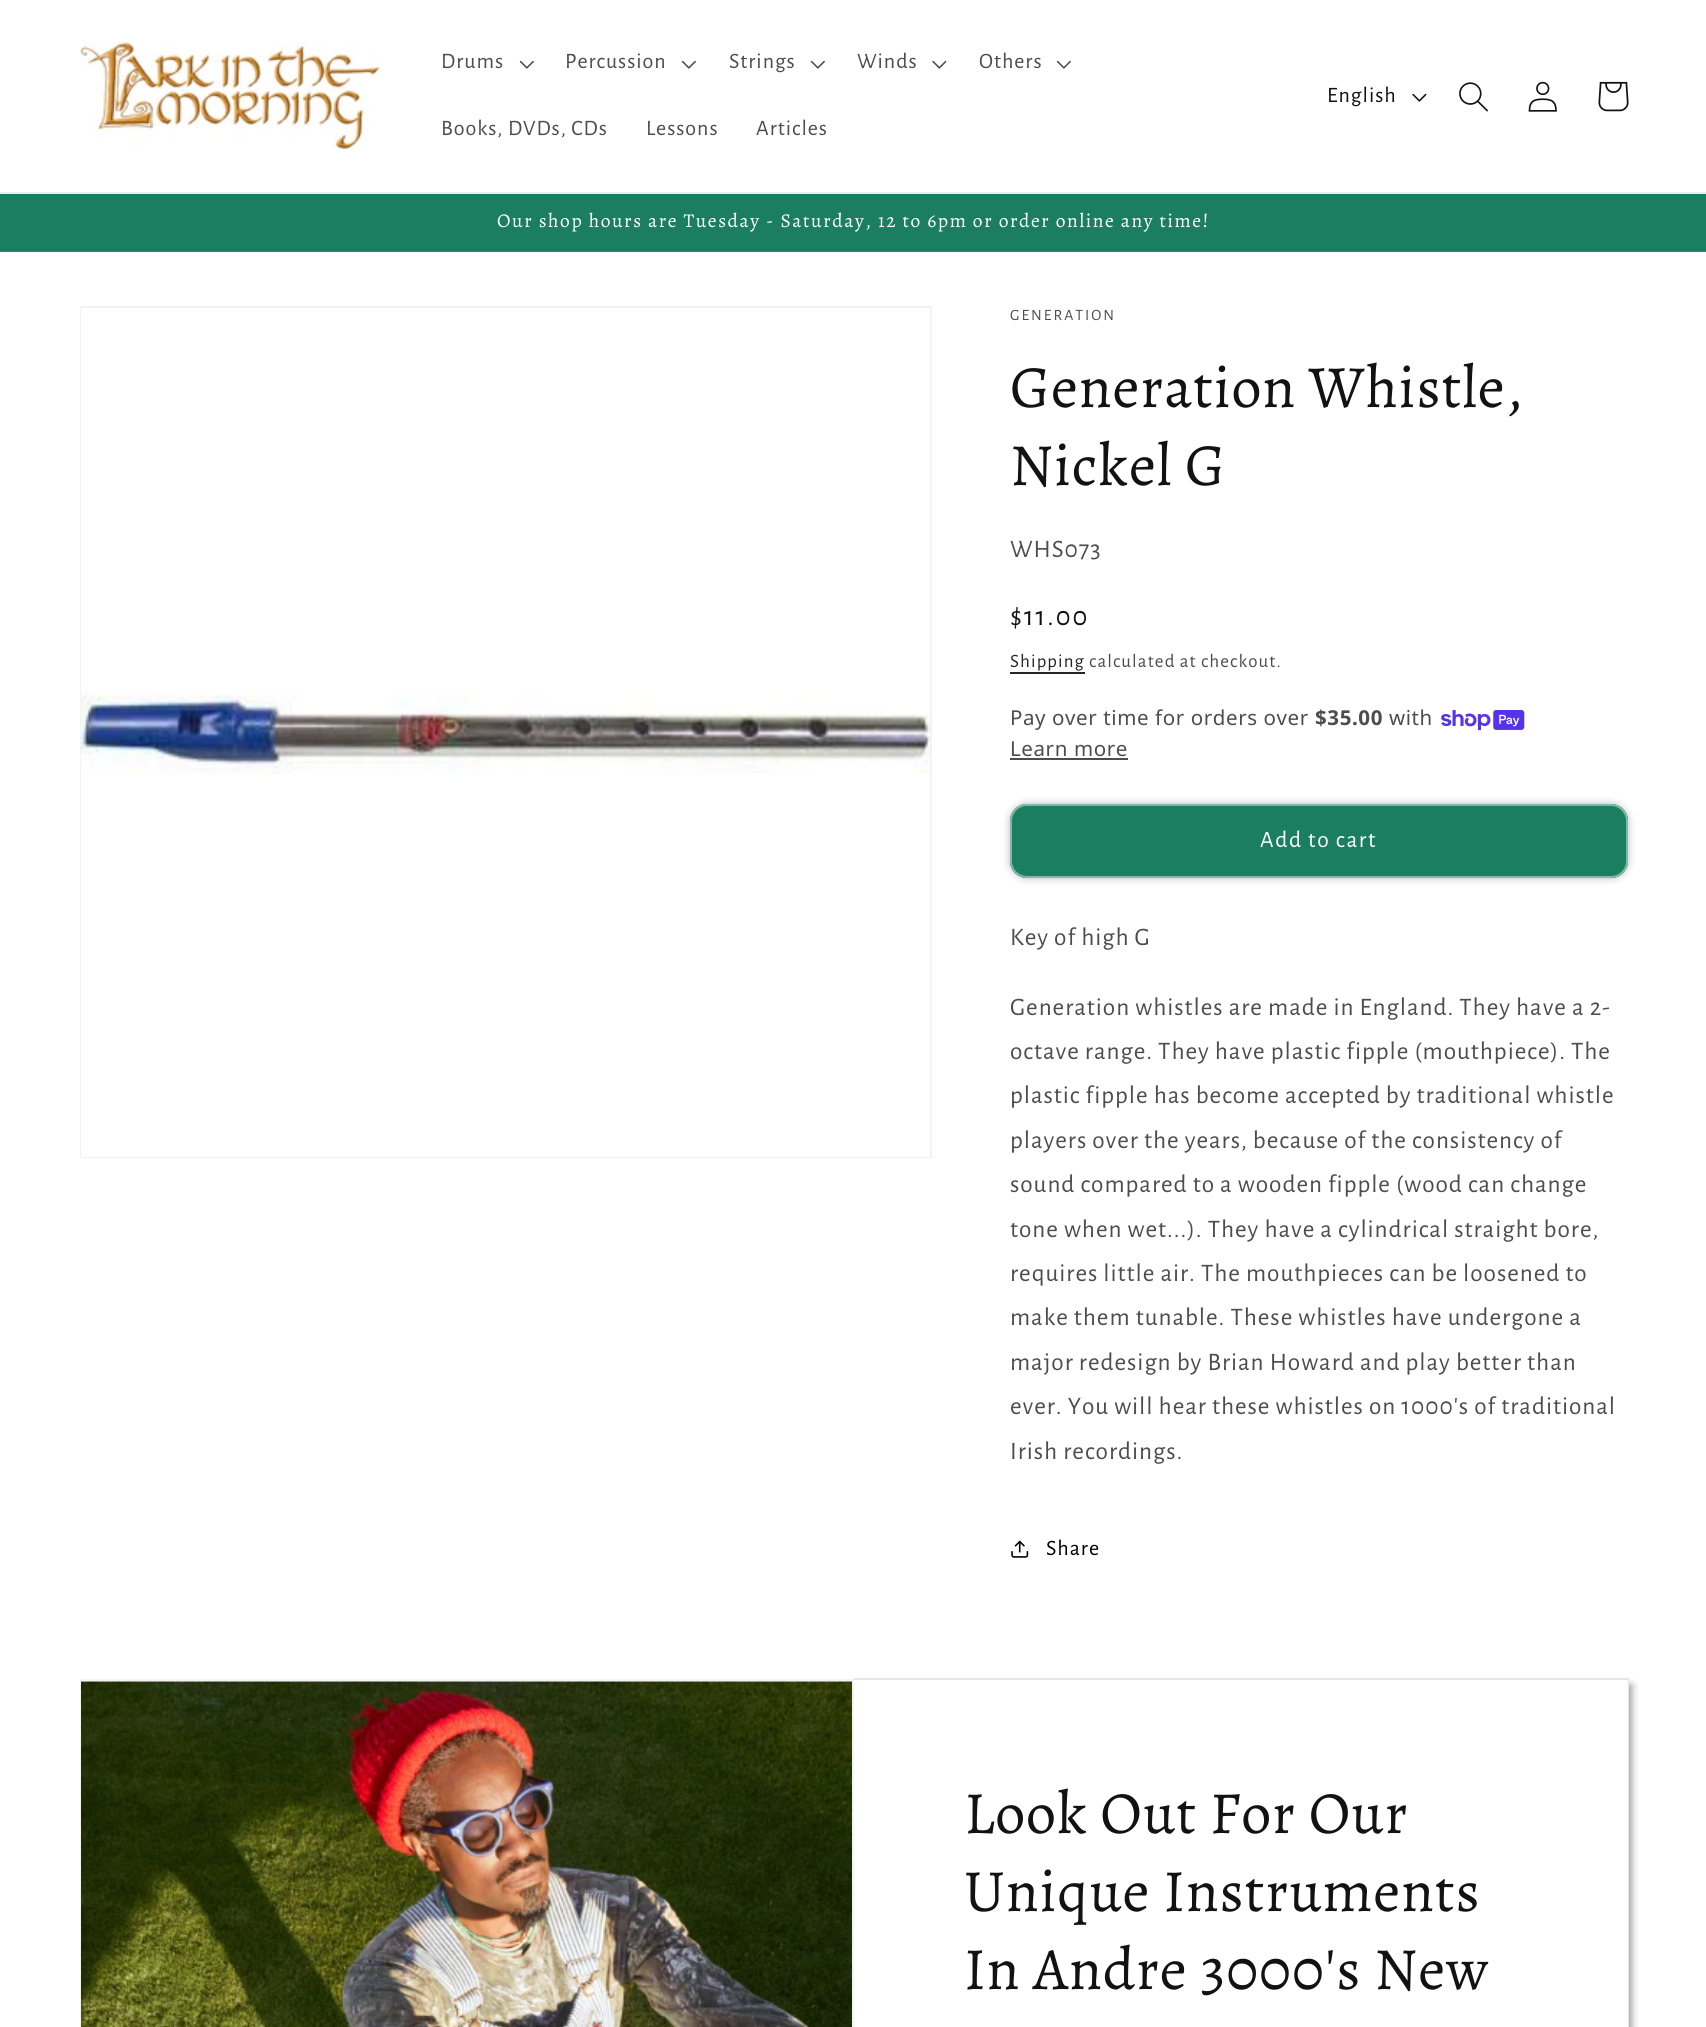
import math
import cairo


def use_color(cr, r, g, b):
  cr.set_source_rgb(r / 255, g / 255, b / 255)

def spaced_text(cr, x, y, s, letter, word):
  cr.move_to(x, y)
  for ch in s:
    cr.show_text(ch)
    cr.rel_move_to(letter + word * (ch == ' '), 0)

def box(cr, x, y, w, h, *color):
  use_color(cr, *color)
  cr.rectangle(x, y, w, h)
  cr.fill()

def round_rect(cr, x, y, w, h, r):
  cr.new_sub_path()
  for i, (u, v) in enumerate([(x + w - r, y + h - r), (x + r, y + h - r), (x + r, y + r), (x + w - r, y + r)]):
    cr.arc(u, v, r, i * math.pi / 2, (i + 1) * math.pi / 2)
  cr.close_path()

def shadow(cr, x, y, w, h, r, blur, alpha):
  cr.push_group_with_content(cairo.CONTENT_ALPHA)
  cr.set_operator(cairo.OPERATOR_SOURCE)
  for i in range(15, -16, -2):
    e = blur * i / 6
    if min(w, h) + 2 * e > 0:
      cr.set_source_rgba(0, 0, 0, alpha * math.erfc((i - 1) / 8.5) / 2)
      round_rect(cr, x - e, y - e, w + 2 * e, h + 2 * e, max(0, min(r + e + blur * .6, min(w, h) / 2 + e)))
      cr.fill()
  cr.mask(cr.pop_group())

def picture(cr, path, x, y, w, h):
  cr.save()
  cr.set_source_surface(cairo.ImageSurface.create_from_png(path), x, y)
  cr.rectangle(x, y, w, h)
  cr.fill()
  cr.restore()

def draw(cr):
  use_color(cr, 255, 255, 255)
  cr.paint()
  box(cr, 0, 192, 1706, 2, 236, 236, 236)
  picture(cr, "img_01.png", 79, 42, 301, 108)
  picture(cr, "img_02.png", 519, 60, 15, 9)
  picture(cr, "img_02.png", 681, 60, 15, 9)
  picture(cr, "img_02.png", 810, 60, 15, 9)
  picture(cr, "img_03.png", 932, 60, 15, 9)
  picture(cr, "img_02.png", 1056, 60, 15, 9)
  picture(cr, "img_04.png", 1412, 93, 15, 9)
  picture(cr, "img_05.png", 1459, 82, 29, 30)
  picture(cr, "img_06.png", 1528, 81, 29, 31)
  picture(cr, "img_07.png", 1598, 81, 31, 31)
  box(cr, 0, 194, 1706, 57, 28, 126, 96)
  box(cr, 0, 251, 1706, 1, 46, 136, 109)
  cr.rectangle(81, 307, 850, 850)
  use_color(cr, 243, 243, 243)
  cr.stroke()
  picture(cr, "img_08.png", 81, 308, 849, 849)
  box(cr, 1010, 672, 75, 2, 38, 38, 38)
  picture(cr, "img_09.png", 1441, 710, 84, 21)
  box(cr, 1010, 758, 118, 2, 77, 77, 77)
  use_color(cr, 18, 18, 18)
  shadow(cr, 1010, 804, 618, 74, 17, 4, 0.3)
  use_color(cr, 28, 126, 96)
  round_rect(cr, 1010, 804, 618, 74, 17)
  cr.fill()
  round_rect(cr, 1011, 805, 616, 72, 16)
  cr.stroke()
  round_rect(cr, 1011, 805, 616, 72, 16)
  cr.set_source_rgba(1, 1, 1, 0.45)
  cr.stroke()
  picture(cr, "img_10.png", 1011, 1540, 18, 18)
  cr.save()
  cr.rectangle(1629, 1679, 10, 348)
  cr.clip()
  use_color(cr, 18, 18, 18)
  shadow(cr, 857, 1685, 775, 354, 0, 4, 0.4)
  cr.restore()
  cr.rectangle(81, 1680, 772, 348)
  use_color(cr, 243, 243, 243)
  cr.stroke()
  picture(cr, "img_11.png", 81, 1681, 771, 346)
  use_color(cr, 230, 230, 230)
  cr.new_path()
  cr.move_to(854, 1678)
  cr.line_to(1629, 1678)
  cr.line_to(1628, 1680)
  cr.line_to(854, 1680)
  cr.close_path()
  cr.fill()
  cr.set_source_rgba(0.071, 0.071, 0.071, 0.1)
  cr.new_path()
  cr.move_to(1629, 1678)
  cr.line_to(1629, 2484)
  cr.line_to(1628, 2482)
  cr.line_to(1628, 1680)
  cr.close_path()
  cr.fill()
  cr.select_font_face("Alegreya Sans")
  cr.set_font_size(22)
  use_color(cr, 77, 77, 77)
  spaced_text(cr, 441, 68, "Drums", 0.95, 0)
  spaced_text(cr, 565, 68, "Percussion", 0.95, 0)
  spaced_text(cr, 729, 68, "Strings", 0.95, 0)
  spaced_text(cr, 857, 68, "Winds", 0.95, 0)
  spaced_text(cr, 979, 68, "Others", 0.95, 0)
  spaced_text(cr, 441, 135, "Books, DVDs, CDs", 0.95, 0)
  spaced_text(cr, 646, 135, "Lessons", 0.95, 0)
  spaced_text(cr, 756, 135, "Articles", 0.95, 0)
  use_color(cr, 18, 18, 18)
  spaced_text(cr, 1327, 102, "English", 0.95, 0)
  cr.select_font_face("Alegreya")
  cr.set_font_size(19.5)
  use_color(cr, 255, 255, 255)
  spaced_text(cr, 497, 227, "Our shop hours are Tuesday - Saturday, 12 to 6pm or order online any time!", 1.58, 0)
  cr.select_font_face("Alegreya Sans")
  cr.set_font_size(15.75)
  use_color(cr, 77, 77, 77)
  spaced_text(cr, 1010, 320, "GENERATION", 2, 0)
  cr.select_font_face("Alegreya")
  cr.set_font_size(60)
  use_color(cr, 18, 18, 18)
  spaced_text(cr, 1010, 407, "Generation Whistle,", 0.9, 0)
  spaced_text(cr, 1010, 485, "Nickel G", 0.9, 0)
  cr.select_font_face("Alegreya Sans")
  cr.set_font_size(25.2)
  use_color(cr, 77, 77, 77)
  spaced_text(cr, 1010, 557, "WHS073", 0.95, 0)
  cr.set_font_size(28)
  use_color(cr, 18, 18, 18)
  spaced_text(cr, 1010, 625, "$11.00", 2, 0)
  cr.set_font_size(18.9)
  use_color(cr, 38, 38, 38)
  spaced_text(cr, 1010, 667, "Shipping", 1.1, 0)
  use_color(cr, 77, 77, 77)
  spaced_text(cr, 1089, 667, "calculated at checkout.", 1.1, 0)
  cr.select_font_face("Noto Sans")
  cr.set_font_size(20.5)
  spaced_text(cr, 1010, 725, "Pay over time for orders over", 0.6, 0)
  cr.select_font_face("Noto Sans", cairo.FONT_SLANT_NORMAL, cairo.FONT_WEIGHT_BOLD)
  spaced_text(cr, 1315, 725, "$35.00", 0.6, 0)
  cr.select_font_face("Noto Sans")
  spaced_text(cr, 1389, 725, "with", 0.6, 0)
  spaced_text(cr, 1010, 756, "Learn more", 0.6, 0)
  cr.select_font_face("Alegreya Sans")
  cr.set_font_size(23.5)
  use_color(cr, 255, 255, 255)
  spaced_text(cr, 1260, 847, "Add to cart", 1.58, 0)
  cr.set_font_size(25.2)
  use_color(cr, 77, 77, 77)
  spaced_text(cr, 1010, 945, "Key of high G", 0.95, 0)
  spaced_text(cr, 1010, 1015, "Generation whistles are made in England. They have a 2-", 0.95, 0)
  spaced_text(cr, 1010, 1059, "octave range. They have plastic fipple (mouthpiece). The", 0.95, 0)
  spaced_text(cr, 1010, 1103, "plastic fipple has become accepted by traditional whistle", 0.95, 0)
  spaced_text(cr, 1010, 1148, "players over the years, because of the consistency of", 0.95, 0)
  spaced_text(cr, 1010, 1192, "sound compared to a wooden fipple (wood can change", 0.95, 0)
  spaced_text(cr, 1010, 1237, "tone when wet...). They have a cylindrical straight bore,", 0.95, 0)
  spaced_text(cr, 1010, 1281, "requires little air. The mouthpieces can be loosened to", 0.95, 0)
  spaced_text(cr, 1010, 1325, "make them tunable. These whistles have undergone a", 0.95, 0)
  spaced_text(cr, 1010, 1370, "major redesign by Brian Howard and play better than", 0.95, 0)
  spaced_text(cr, 1010, 1414, "ever. You will hear these whistles on 1000's of traditional", 0.95, 0)
  spaced_text(cr, 1010, 1459, "Irish recordings.", 0.95, 0)
  cr.set_font_size(22)
  use_color(cr, 0, 0, 0)
  spaced_text(cr, 1046, 1555, "Share", 0.95, 0)
  cr.select_font_face("Alegreya")
  cr.set_font_size(60)
  use_color(cr, 18, 18, 18)
  spaced_text(cr, 964, 1833, "Look Out For Our", 0.9, 0)
  spaced_text(cr, 964, 1911, "Unique Instruments", 0.9, 0)
  spaced_text(cr, 964, 1989, "In Andre 3000's New", 0.9, 0)


surface = cairo.ImageSurface(cairo.FORMAT_RGB24, 1706, 2027)
cr = cairo.Context(surface)
options = cairo.FontOptions()
options.set_hint_metrics(cairo.HINT_METRICS_OFF)
options.set_hint_style(cairo.HINT_STYLE_NONE)
cr.set_font_options(options)
cr.set_miter_limit(4)
draw(cr)
surface.write_to_png("out.png")
